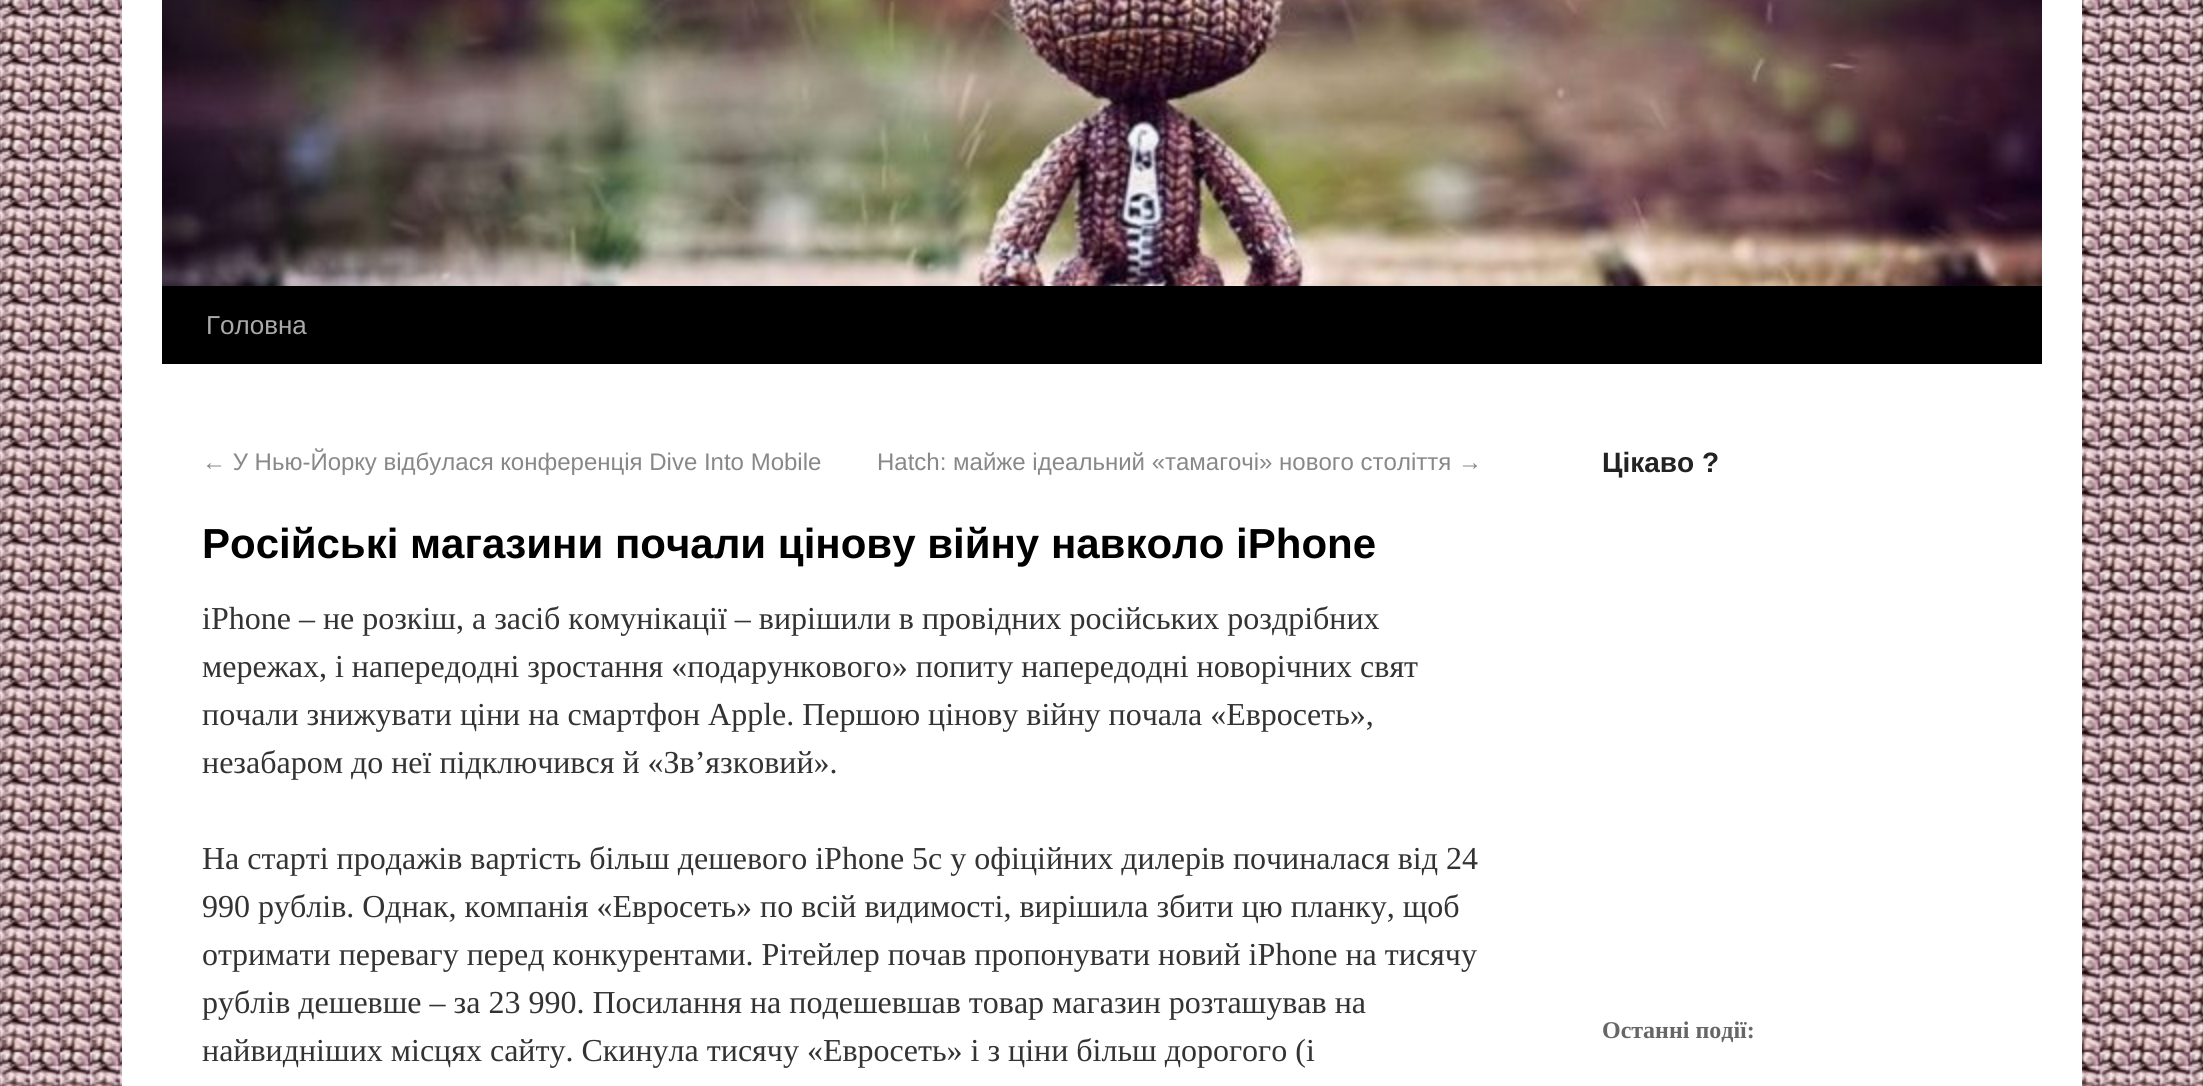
import math
import cairo


def use_color(cr, r, g, b):
  cr.set_source_rgb(r / 255, g / 255, b / 255)

def text(cr, x, y, s, family, size, color, bold=False, italic=False):
  cr.select_font_face(family, cairo.FONT_SLANT_ITALIC if italic else cairo.FONT_SLANT_NORMAL, cairo.FONT_WEIGHT_BOLD if bold else cairo.FONT_WEIGHT_NORMAL)
  cr.set_font_size(size)
  use_color(cr, *color)
  cr.move_to(x, y)
  cr.show_text(s)

def box(cr, x, y, w, h, *color):
  use_color(cr, *color)
  cr.rectangle(x, y, w, h)
  cr.fill()

def picture(cr, path, x, y, w, h):
  cr.save()
  cr.set_source_surface(cairo.ImageSurface.create_from_png(path), x, y)
  cr.rectangle(x, y, w, h)
  cr.fill()
  cr.restore()

def draw(cr):
  use_color(cr, 255, 255, 255)
  cr.paint()
  picture(cr, "img_01.png", 0, 0, 2203, 1086)
  box(cr, 122, 0, 1960, 1086, 255, 255, 255)
  box(cr, 162, 286, 1880, 78, 0, 0, 0)
  picture(cr, "img_02.png", 162, 0, 1880, 286)
  text(cr, 206, 334, "Головна", "Liberation Sans", 26, (170, 170, 170))
  text(cr, 202, 470, "← У Нью-Йорку відбулася конференція Dive Into Mobile", "Liberation Sans", 24, (136, 136, 136))
  text(cr, 877, 470, "Hatch: майже ідеальний «тамагочі» нового століття →", "Liberation Sans", 24, (136, 136, 136))
  text(cr, 202, 558, "Російські магазини почали цінову війну навколо iPhone", "Liberation Sans", 42, (0, 0, 0), bold=True)
  text(cr, 202, 629, "iPhone – не розкіш, а засіб комунікації – вирішили в провідних російських роздрібних", "Liberation Serif", 32, (51, 51, 51))
  text(cr, 202, 677, "мережах, і напередодні зростання «подарункового» попиту напередодні новорічних свят", "Liberation Serif", 32, (51, 51, 51))
  text(cr, 202, 725, "почали знижувати ціни на смартфон Apple. Першою цінову війну почала «Евросеть»,", "Liberation Serif", 32, (51, 51, 51))
  text(cr, 202, 773, "незабаром до неї підключився й «Зв’язковий».", "Liberation Serif", 32, (51, 51, 51))
  text(cr, 202, 869, "На старті продажів вартість більш дешевого iPhone 5c у офіційних дилерів починалася від 24", "Liberation Serif", 32, (51, 51, 51))
  text(cr, 202, 917, "990 рублів. Однак, компанія «Евросеть» по всій видимості, вирішила збити цю планку, щоб", "Liberation Serif", 32, (51, 51, 51))
  text(cr, 202, 965, "отримати перевагу перед конкурентами. Рітейлер почав пропонувати новий iPhone на тисячу", "Liberation Serif", 32, (51, 51, 51))
  text(cr, 202, 1013, "рублів дешевше – за 23 990. Посилання на подешевшав товар магазин розташував на", "Liberation Serif", 32, (51, 51, 51))
  text(cr, 202, 1061, "найвидніших місцях сайту. Скинула тисячу «Евросеть» і з ціни більш дорогого (і", "Liberation Serif", 32, (51, 51, 51))
  text(cr, 1602, 472, "Цікаво ?", "Liberation Sans", 28, (34, 34, 34), bold=True)
  text(cr, 1602, 1038, "Останні події:", "Liberation Serif", 24, (102, 102, 102), bold=True)


surface = cairo.ImageSurface(cairo.FORMAT_RGB24, 2203, 1086)
cr = cairo.Context(surface)
options = cairo.FontOptions()
options.set_hint_metrics(cairo.HINT_METRICS_OFF)
options.set_hint_style(cairo.HINT_STYLE_NONE)
cr.set_font_options(options)
cr.set_miter_limit(4)
draw(cr)
surface.write_to_png("out.png")
